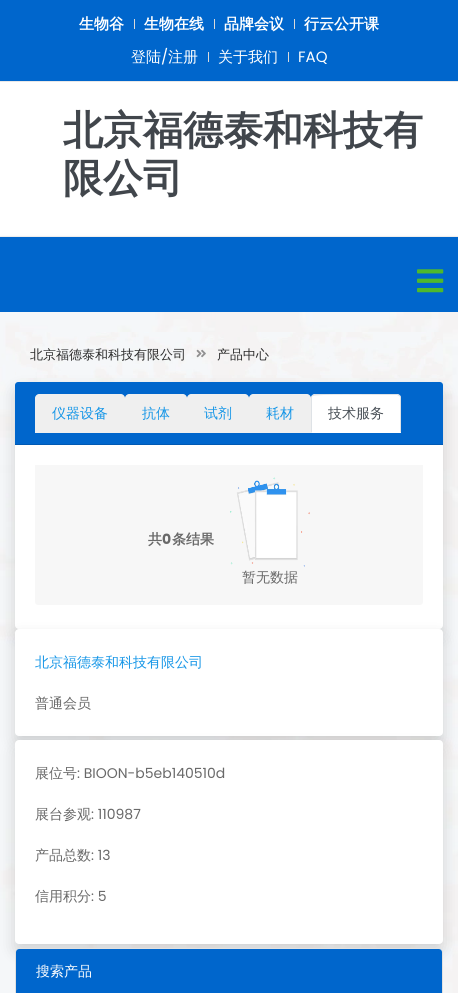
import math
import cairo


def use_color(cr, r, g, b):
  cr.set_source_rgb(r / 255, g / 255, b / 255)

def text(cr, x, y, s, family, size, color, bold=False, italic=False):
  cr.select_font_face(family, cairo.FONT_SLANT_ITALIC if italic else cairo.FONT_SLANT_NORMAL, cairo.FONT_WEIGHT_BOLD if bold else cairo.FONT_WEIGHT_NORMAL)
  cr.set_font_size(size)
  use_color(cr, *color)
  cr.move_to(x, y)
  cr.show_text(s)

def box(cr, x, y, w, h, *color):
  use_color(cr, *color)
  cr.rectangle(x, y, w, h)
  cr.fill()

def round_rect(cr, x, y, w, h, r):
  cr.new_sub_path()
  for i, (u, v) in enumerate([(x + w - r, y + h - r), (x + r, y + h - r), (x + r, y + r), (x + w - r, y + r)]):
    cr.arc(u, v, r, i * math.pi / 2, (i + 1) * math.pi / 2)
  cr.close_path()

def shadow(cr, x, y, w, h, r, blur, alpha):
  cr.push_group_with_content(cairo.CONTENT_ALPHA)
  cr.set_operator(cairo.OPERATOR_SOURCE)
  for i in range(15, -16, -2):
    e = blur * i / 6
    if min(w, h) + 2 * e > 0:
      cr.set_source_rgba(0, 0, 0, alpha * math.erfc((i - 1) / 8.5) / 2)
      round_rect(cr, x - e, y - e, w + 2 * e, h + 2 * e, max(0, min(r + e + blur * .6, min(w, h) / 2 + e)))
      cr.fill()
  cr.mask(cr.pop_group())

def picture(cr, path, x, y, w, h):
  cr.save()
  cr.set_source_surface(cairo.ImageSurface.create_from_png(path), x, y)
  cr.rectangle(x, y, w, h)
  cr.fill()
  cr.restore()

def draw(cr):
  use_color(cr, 255, 255, 255)
  cr.paint()
  box(cr, 0, 0, 458, 81, 0, 102, 204)
  box(cr, 0, 81, 458, 1, 233, 232, 232)
  box(cr, 134, 19, 1, 10, 219, 218, 218)
  box(cr, 214, 19, 1, 10, 219, 218, 218)
  box(cr, 294, 19, 1, 10, 219, 218, 218)
  box(cr, 208, 52, 1, 10, 219, 218, 218)
  box(cr, 288, 52, 1, 10, 219, 218, 218)
  box(cr, 0, 236, 458, 1, 242, 242, 242)
  use_color(cr, 104, 104, 104)
  shadow(cr, 0, 238, 458, 75, 0, 2.5, 0.14)
  box(cr, 0, 237, 458, 75, 0, 102, 204)
  picture(cr, "img_01.png", 417, 269, 27, 24)
  picture(cr, "img_02.png", 0, 312, 458, 681)
  picture(cr, "img_03.png", 15, 332, 428, 46)
  picture(cr, "img_04.png", 196, 349, 10, 9)
  use_color(cr, 0, 0, 0)
  shadow(cr, 15, 390, 428, 247, 4, 8, 0.15)
  use_color(cr, 255, 255, 255)
  round_rect(cr, 15, 382, 428, 247, 4)
  cr.fill()
  use_color(cr, 0, 102, 204)
  cr.new_path()
  cr.move_to(18, 382)
  cr.line_to(440, 382)
  cr.curve_to(441.5, 382, 443, 383.5, 443, 385)
  cr.line_to(443, 445)
  cr.line_to(15, 445)
  cr.line_to(15, 385)
  cr.curve_to(15, 383.5, 16.5, 382, 18, 382)
  cr.close_path()
  cr.fill()
  box(cr, 15, 444, 428, 1, 0, 89, 179)
  use_color(cr, 239, 239, 239)
  cr.new_path()
  cr.move_to(39, 394)
  cr.line_to(121, 394)
  cr.curve_to(123, 394, 125, 396, 125, 398)
  cr.line_to(125, 433)
  cr.line_to(35, 433)
  cr.line_to(35, 398)
  cr.curve_to(35, 396, 37, 394, 39, 394)
  cr.close_path()
  cr.fill()
  cr.new_path()
  cr.move_to(129, 394)
  cr.line_to(183, 394)
  cr.curve_to(185, 394, 187, 396, 187, 398)
  cr.line_to(187, 433)
  cr.line_to(125, 433)
  cr.line_to(125, 398)
  cr.curve_to(125, 396, 127, 394, 129, 394)
  cr.close_path()
  cr.fill()
  cr.new_path()
  cr.move_to(191, 394)
  cr.line_to(245, 394)
  cr.curve_to(247, 394, 249, 396, 249, 398)
  cr.line_to(249, 433)
  cr.line_to(187, 433)
  cr.line_to(187, 398)
  cr.curve_to(187, 396, 189, 394, 191, 394)
  cr.close_path()
  cr.fill()
  cr.new_path()
  cr.move_to(253, 394)
  cr.line_to(307, 394)
  cr.curve_to(309, 394, 311, 396, 311, 398)
  cr.line_to(311, 433)
  cr.line_to(249, 433)
  cr.line_to(249, 398)
  cr.curve_to(249, 396, 251, 394, 253, 394)
  cr.close_path()
  cr.fill()
  use_color(cr, 255, 255, 255)
  cr.new_path()
  cr.move_to(315, 394)
  cr.line_to(397, 394)
  cr.curve_to(399, 394, 401, 396, 401, 398)
  cr.line_to(401, 433)
  cr.line_to(311, 433)
  cr.line_to(311, 398)
  cr.curve_to(311, 396, 313, 394, 315, 394)
  cr.close_path()
  cr.fill()
  use_color(cr, 222, 226, 230)
  cr.new_path()
  cr.move_to(315, 394)
  cr.line_to(312, 395)
  cr.line_to(313, 396)
  cr.curve_to(315, 394, 376, 395, 383, 395)
  cr.line_to(397, 395)
  cr.line_to(399, 396)
  cr.line_to(400, 395)
  cr.line_to(397, 394)
  cr.close_path()
  cr.fill()
  cr.new_path()
  cr.move_to(401, 433)
  cr.line_to(401, 398)
  cr.curve_to(401, 397, 400.5, 396, 400, 395)
  cr.line_to(399, 396)
  cr.curve_to(400, 396, 400, 397, 400, 398)
  cr.line_to(400, 432)
  cr.close_path()
  cr.fill()
  use_color(cr, 255, 255, 255)
  cr.new_path()
  cr.move_to(401, 433)
  cr.line_to(400, 432)
  cr.line_to(312, 432)
  cr.line_to(311, 433)
  cr.close_path()
  cr.fill()
  use_color(cr, 222, 226, 230)
  cr.new_path()
  cr.move_to(311, 433)
  cr.line_to(312, 432)
  cr.line_to(312, 398)
  cr.curve_to(312, 397, 312, 396, 313, 396)
  cr.line_to(312, 395)
  cr.curve_to(311.5, 396, 311, 397, 311, 398)
  cr.close_path()
  cr.fill()
  use_color(cr, 247, 247, 247)
  cr.new_path()
  cr.move_to(35, 465)
  cr.line_to(423, 465)
  cr.line_to(423, 602)
  cr.curve_to(423, 603.5, 421.5, 605, 420, 605)
  cr.line_to(38, 605)
  cr.curve_to(36.5, 605, 35, 603.5, 35, 602)
  cr.close_path()
  cr.fill()
  picture(cr, "img_05.png", 230, 477, 80, 90)
  use_color(cr, 0, 0, 0)
  shadow(cr, 15, 637, 428, 107, 4, 8, 0.15)
  use_color(cr, 255, 255, 255)
  round_rect(cr, 15, 629, 428, 107, 4)
  cr.fill()
  use_color(cr, 0, 0, 0)
  shadow(cr, 15, 748, 428, 204, 4, 8, 0.15)
  use_color(cr, 255, 255, 255)
  round_rect(cr, 15, 740, 428, 204, 4)
  cr.fill()
  round_rect(cr, 15, 948, 428, 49, 4)
  cr.fill()
  round_rect(cr, 15.5, 948.5, 427, 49, 3.5)
  cr.set_source_rgba(0, 0, 0, 0.12)
  cr.set_line_width(1)
  cr.stroke()
  use_color(cr, 0, 102, 204)
  cr.new_path()
  cr.move_to(19, 949)
  cr.line_to(439, 949)
  cr.curve_to(440.5, 949, 442, 950.5, 442, 952)
  cr.line_to(442, 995)
  cr.line_to(16, 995)
  cr.line_to(16, 952)
  cr.curve_to(16, 950.5, 17.5, 949, 19, 949)
  cr.close_path()
  cr.fill()
  text(cr, 79, 29, "生物谷", "WenQuanYi Zen Hei", 15, (255, 255, 255), bold=True)
  text(cr, 144, 29, "生物在线", "WenQuanYi Zen Hei", 15, (255, 255, 255), bold=True)
  text(cr, 224, 29, "品牌会议", "WenQuanYi Zen Hei", 15, (255, 255, 255), bold=True)
  text(cr, 304, 29, "行云公开课", "WenQuanYi Zen Hei", 15, (255, 255, 255), bold=True)
  text(cr, 131, 62, "登陆", "WenQuanYi Zen Hei Medium", 15, (255, 255, 255))
  text(cr, 161, 62, "/", "Poppins", 15, (255, 255, 255))
  text(cr, 168, 62, "注册", "WenQuanYi Zen Hei Medium", 15, (255, 255, 255))
  text(cr, 218, 62, "关于我们", "WenQuanYi Zen Hei Medium", 15, (255, 255, 255))
  text(cr, 298, 62, "FAQ", "Poppins", 15, (255, 255, 255))
  text(cr, 63, 144, "北京福德泰和科技有", "WenQuanYi Zen Hei", 40, (65, 70, 76), bold=True)
  text(cr, 63, 192, "限公司", "WenQuanYi Zen Hei", 40, (65, 70, 76), bold=True)
  text(cr, 30, 359, "北京福德泰和科技有限公司", "WenQuanYi Zen Hei Medium", 13, (43, 43, 43))
  text(cr, 217, 359, "产品中心", "WenQuanYi Zen Hei Medium", 13, (43, 43, 43))
  text(cr, 52, 418, "仪器设备", "WenQuanYi Zen Hei Medium", 14, (22, 150, 231))
  text(cr, 142, 418, "抗体", "WenQuanYi Zen Hei Medium", 14, (22, 150, 231))
  text(cr, 204, 418, "试剂", "WenQuanYi Zen Hei Medium", 14, (22, 150, 231))
  text(cr, 266, 418, "耗材", "WenQuanYi Zen Hei Medium", 14, (22, 150, 231))
  text(cr, 328, 418, "技术服务", "WenQuanYi Zen Hei Medium", 14, (73, 80, 87))
  text(cr, 148, 544, "共", "WenQuanYi Zen Hei", 14, (105, 105, 105), bold=True)
  text(cr, 162, 544, "0", "Poppins", 14, (105, 105, 105), bold=True)
  text(cr, 172, 544, "条结果", "WenQuanYi Zen Hei", 14, (105, 105, 105), bold=True)
  text(cr, 242, 582, "暂无数据", "WenQuanYi Zen Hei Medium", 14, (105, 105, 105))
  text(cr, 35, 667, "北京福德泰和科技有限公司", "WenQuanYi Zen Hei Medium", 14, (22, 150, 231))
  text(cr, 35, 708, "普通会员", "WenQuanYi Zen Hei Medium", 14, (105, 105, 105))
  text(cr, 35, 778, "展位号", "WenQuanYi Zen Hei Medium", 14, (105, 105, 105))
  text(cr, 77, 778, ": BIOON-b5eb140510d", "Poppins", 14, (105, 105, 105))
  text(cr, 35, 819, "展台参观", "WenQuanYi Zen Hei Medium", 14, (105, 105, 105))
  text(cr, 91, 819, ": 110987", "Poppins", 14, (105, 105, 105))
  text(cr, 35, 860, "产品总数", "WenQuanYi Zen Hei Medium", 14, (105, 105, 105))
  text(cr, 91, 860, ": 13", "Poppins", 14, (105, 105, 105))
  text(cr, 35, 901, "信用积分", "WenQuanYi Zen Hei Medium", 14, (105, 105, 105))
  text(cr, 91, 901, ": 5", "Poppins", 14, (105, 105, 105))
  text(cr, 36, 976, "搜索产品", "WenQuanYi Zen Hei Medium", 14, (255, 255, 255))


surface = cairo.ImageSurface(cairo.FORMAT_RGB24, 458, 993)
cr = cairo.Context(surface)
options = cairo.FontOptions()
options.set_hint_metrics(cairo.HINT_METRICS_OFF)
options.set_hint_style(cairo.HINT_STYLE_NONE)
cr.set_font_options(options)
cr.set_miter_limit(4)
draw(cr)
surface.write_to_png("out.png")
